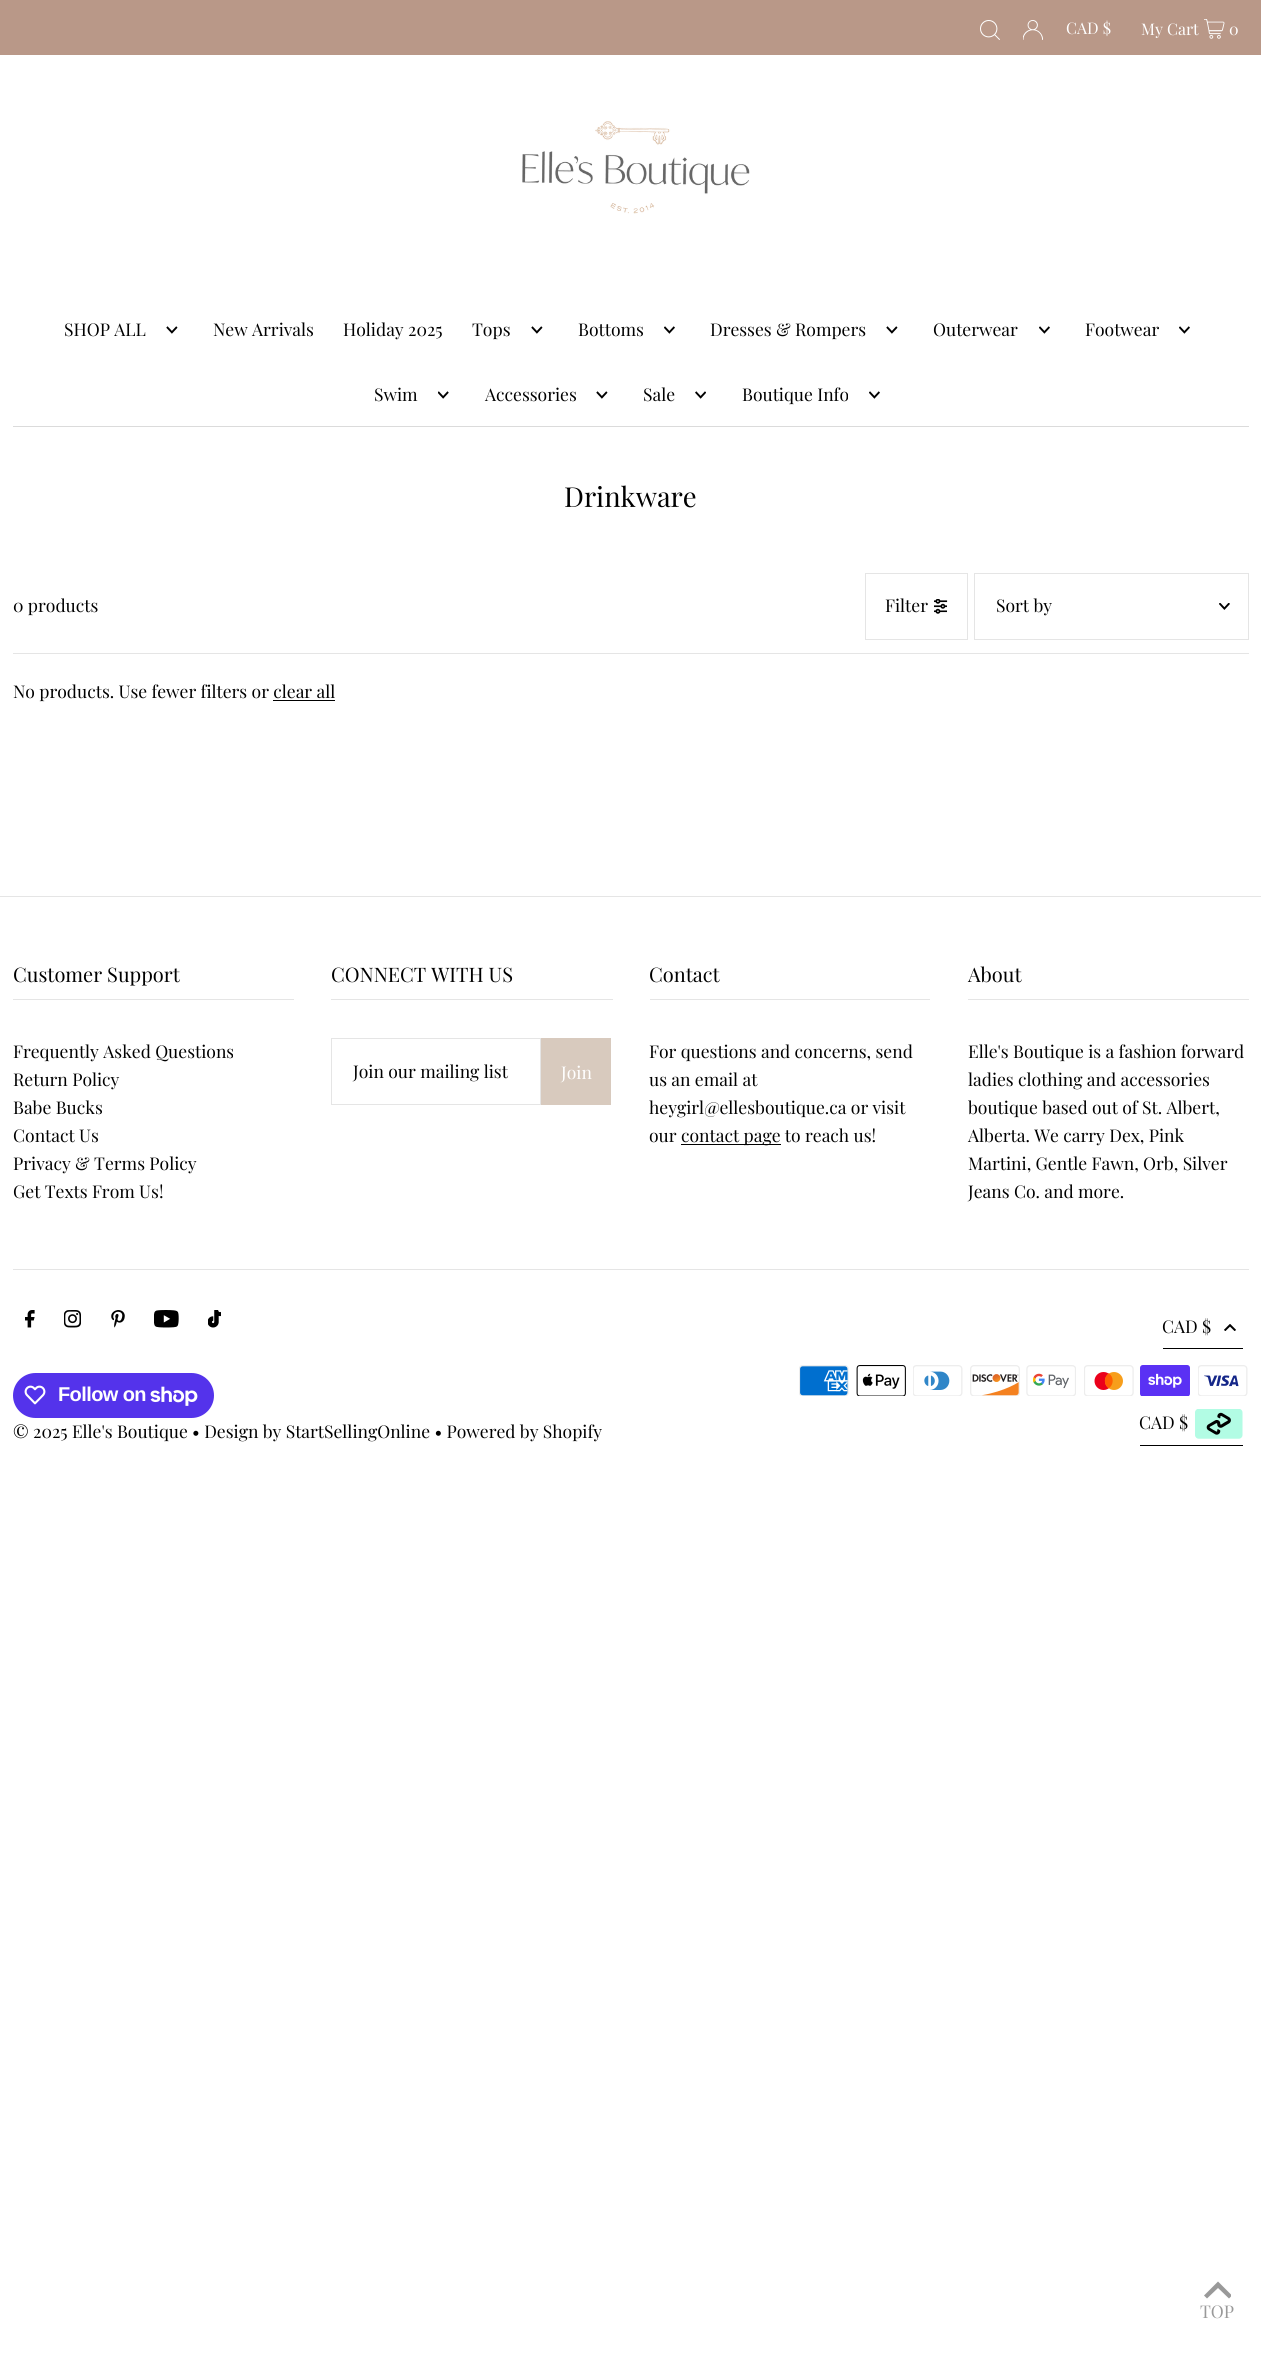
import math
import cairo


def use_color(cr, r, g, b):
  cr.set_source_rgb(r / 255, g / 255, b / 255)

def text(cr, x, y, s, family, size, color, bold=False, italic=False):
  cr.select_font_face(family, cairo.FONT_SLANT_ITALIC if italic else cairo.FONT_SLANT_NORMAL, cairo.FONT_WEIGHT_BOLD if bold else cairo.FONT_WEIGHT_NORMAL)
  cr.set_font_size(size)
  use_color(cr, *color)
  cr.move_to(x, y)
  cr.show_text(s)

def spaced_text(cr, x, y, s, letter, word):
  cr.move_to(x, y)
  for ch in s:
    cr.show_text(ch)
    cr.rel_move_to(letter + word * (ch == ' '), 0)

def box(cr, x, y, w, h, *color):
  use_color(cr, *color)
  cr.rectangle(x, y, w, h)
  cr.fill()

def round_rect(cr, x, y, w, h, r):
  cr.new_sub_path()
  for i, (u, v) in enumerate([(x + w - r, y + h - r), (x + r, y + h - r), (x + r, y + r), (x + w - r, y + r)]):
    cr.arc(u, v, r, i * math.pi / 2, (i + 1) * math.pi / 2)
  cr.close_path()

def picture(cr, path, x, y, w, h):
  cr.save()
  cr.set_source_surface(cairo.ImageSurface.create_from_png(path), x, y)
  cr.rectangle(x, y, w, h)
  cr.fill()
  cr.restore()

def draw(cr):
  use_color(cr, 255, 255, 255)
  cr.paint()
  box(cr, 0, 0, 1261, 55, 185, 152, 136)
  picture(cr, "img_01.png", 980, 20, 20, 20)
  picture(cr, "img_02.png", 1023, 20, 20, 20)
  picture(cr, "img_03.png", 1204, 19, 21, 20)
  box(cr, 13, 426, 1236, 1, 219, 219, 219)
  picture(cr, "img_04.png", 522, 121, 228, 93)
  picture(cr, "img_05.png", 166, 326, 12, 8)
  picture(cr, "img_05.png", 531, 326, 12, 8)
  picture(cr, "img_06.png", 664, 326, 11, 8)
  picture(cr, "img_05.png", 886, 326, 12, 8)
  picture(cr, "img_06.png", 1039, 326, 11, 8)
  picture(cr, "img_06.png", 1179, 326, 11, 8)
  picture(cr, "img_07.png", 438, 391, 11, 8)
  picture(cr, "img_05.png", 596, 391, 12, 8)
  picture(cr, "img_08.png", 695, 391, 11, 8)
  picture(cr, "img_06.png", 869, 391, 11, 8)
  box(cr, 13, 653, 1236, 1, 229, 229, 229)
  cr.rectangle(865.5, 573.5, 102, 66)
  cr.set_line_width(1)
  cr.stroke()
  picture(cr, "img_09.png", 934, 599, 14, 15)
  cr.rectangle(974.5, 573.5, 274, 66)
  cr.stroke()
  picture(cr, "img_10.png", 1219, 603, 11, 7)
  box(cr, 273, 700, 62, 1, 0, 0, 0)
  box(cr, 0, 896, 1261, 1, 229, 229, 229)
  box(cr, 13, 999, 281, 1, 229, 229, 229)
  box(cr, 331, 999, 282, 1, 229, 229, 229)
  cr.rectangle(331.5, 1038.5, 209, 66)
  cr.stroke()
  box(cr, 541, 1038, 70, 67, 216, 202, 190)
  box(cr, 650, 999, 280, 1, 229, 229, 229)
  box(cr, 681, 1144, 100, 1, 0, 0, 0)
  box(cr, 968, 999, 281, 1, 229, 229, 229)
  box(cr, 13, 1269, 1236, 1, 229, 229, 229)
  picture(cr, "img_11.png", 25, 1310, 10, 18)
  picture(cr, "img_12.png", 64, 1310, 17, 18)
  picture(cr, "img_13.png", 111, 1310, 14, 18)
  picture(cr, "img_14.png", 154, 1310, 25, 18)
  picture(cr, "img_15.png", 208, 1310, 13, 18)
  use_color(cr, 84, 51, 235)
  round_rect(cr, 13, 1373, 201, 45, 22.5)
  cr.fill()
  picture(cr, "img_16.png", 24, 1385, 22, 20)
  picture(cr, "img_17.png", 150, 1386, 48, 20)
  box(cr, 1163, 1348, 80, 1, 0, 0, 0)
  picture(cr, "img_18.png", 1224, 1324, 12, 7)
  picture(cr, "img_19.png", 799, 1365, 50, 31)
  picture(cr, "img_20.png", 856, 1365, 50, 31)
  picture(cr, "img_21.png", 913, 1365, 50, 31)
  picture(cr, "img_22.png", 970, 1365, 50, 31)
  picture(cr, "img_23.png", 1026, 1365, 50, 31)
  picture(cr, "img_24.png", 1084, 1365, 50, 31)
  picture(cr, "img_25.png", 1140, 1365, 50, 31)
  picture(cr, "img_26.png", 1198, 1365, 50, 31)
  box(cr, 1140, 1445, 103, 1, 0, 0, 0)
  picture(cr, "img_27.png", 1195, 1409, 48, 30)
  cr.save()
  cr.rectangle(1204, 2281, 27, 18)
  cr.clip()
  use_color(cr, 153, 153, 153)
  cr.new_path()
  cr.move_to(1218, 2281.5)
  cr.line_to(1204, 2295.5)
  cr.line_to(1207, 2298.5)
  cr.line_to(1218, 2288)
  cr.line_to(1229, 2298.5)
  cr.line_to(1232, 2295.5)
  cr.close_path()
  cr.fill()
  cr.restore()
  text(cr, 1066, 34, "CAD $", "Playfair Display", 16, (255, 255, 255))
  text(cr, 1141, 35, "My Cart", "Playfair Display", 16, (255, 255, 255))
  text(cr, 1229, 35, "0", "Playfair Display", 16, (255, 255, 255))
  text(cr, 64, 336, "SHOP ALL", "Playfair Display", 17.5, (0, 0, 0))
  text(cr, 213, 336, "New Arrivals", "Playfair Display", 17.5, (0, 0, 0))
  text(cr, 343, 336, "Holiday 2025", "Playfair Display", 17.5, (0, 0, 0))
  text(cr, 472, 336, "Tops", "Playfair Display", 17.5, (0, 0, 0))
  text(cr, 578, 336, "Bottoms", "Playfair Display", 17.5, (0, 0, 0))
  text(cr, 710, 336, "Dresses & Rompers", "Playfair Display", 17.5, (0, 0, 0))
  text(cr, 933, 336, "Outerwear", "Playfair Display", 17.5, (0, 0, 0))
  text(cr, 1085, 336, "Footwear", "Playfair Display", 17.5, (0, 0, 0))
  text(cr, 374, 401, "Swim", "Playfair Display", 17.5, (0, 0, 0))
  text(cr, 485, 401, "Accessories", "Playfair Display", 17.5, (0, 0, 0))
  text(cr, 643, 401, "Sale", "Playfair Display", 17.5, (0, 0, 0))
  text(cr, 742, 401, "Boutique Info", "Playfair Display", 17.5, (0, 0, 0))
  text(cr, 564, 507, "Drinkware", "Playfair Display", 27.5, (0, 0, 0))
  text(cr, 13, 612, "0 products", "Playfair Display", 17.5, (0, 0, 0))
  text(cr, 885, 612, "Filter", "Playfair Display", 17.5, (0, 0, 0))
  text(cr, 996, 612, "Sort by", "Playfair Display", 17.5, (0, 0, 0))
  text(cr, 13, 698, "No products. Use fewer filters or clear all", "Playfair Display", 17.5, (0, 0, 0))
  text(cr, 13, 982, "Customer Support", "Playfair Display", 20, (0, 0, 0))
  text(cr, 13, 1058, "Frequently Asked Questions", "Playfair Display", 17.5, (0, 0, 0))
  text(cr, 13, 1086, "Return Policy", "Playfair Display", 17.5, (0, 0, 0))
  text(cr, 13, 1114, "Babe Bucks", "Playfair Display", 17.5, (0, 0, 0))
  text(cr, 13, 1142, "Contact Us", "Playfair Display", 17.5, (0, 0, 0))
  text(cr, 13, 1170, "Privacy & Terms Policy", "Playfair Display", 17.5, (0, 0, 0))
  text(cr, 13, 1198, "Get Texts From Us!", "Playfair Display", 17.5, (0, 0, 0))
  text(cr, 331, 982, "CONNECT WITH US", "Playfair Display", 20, (0, 0, 0))
  text(cr, 353, 1078, "Join our mailing list", "Playfair Display", 17.5, (0, 0, 0))
  text(cr, 561, 1079, "Join", "Playfair Display", 17.5, (255, 255, 255))
  text(cr, 649, 982, "Contact", "Playfair Display", 20, (0, 0, 0))
  text(cr, 649, 1058, "For questions and concerns, send", "Playfair Display", 17.5, (0, 0, 0))
  text(cr, 649, 1086, "us an email at", "Playfair Display", 17.5, (0, 0, 0))
  text(cr, 649, 1114, "heygirl@ellesboutique.ca or visit", "Playfair Display", 17.5, (0, 0, 0))
  text(cr, 649, 1142, "our", "Playfair Display", 17.5, (0, 0, 0))
  text(cr, 681, 1142, "contact page to reach us!", "Playfair Display", 17.5, (0, 0, 0))
  text(cr, 968, 982, "About", "Playfair Display", 20, (0, 0, 0))
  text(cr, 968, 1058, "Elle's Boutique is a fashion forward", "Playfair Display", 17.5, (0, 0, 0))
  text(cr, 968, 1086, "ladies clothing and accessories", "Playfair Display", 17.5, (0, 0, 0))
  text(cr, 968, 1114, "boutique based out of St. Albert,", "Playfair Display", 17.5, (0, 0, 0))
  text(cr, 968, 1142, "Alberta. We carry Dex, Pink", "Playfair Display", 17.5, (0, 0, 0))
  text(cr, 968, 1170, "Martini, Gentle Fawn, Orb, Silver", "Playfair Display", 17.5, (0, 0, 0))
  text(cr, 968, 1198, "Jeans Co. and more.", "Playfair Display", 17.5, (0, 0, 0))
  cr.select_font_face("Liberation Sans", cairo.FONT_SLANT_NORMAL, cairo.FONT_WEIGHT_BOLD)
  cr.set_font_size(20)
  use_color(cr, 255, 255, 255)
  spaced_text(cr, 58, 1401, "Follow on", -0.6, 0)
  text(cr, 13, 1438, "© 2025 Elle's Boutique • Design by StartSellingOnline • Powered by Shopify", "Playfair Display", 17.5, (0, 0, 0))
  text(cr, 1162, 1333, "CAD $", "Playfair Display", 17.5, (0, 0, 0))
  text(cr, 1139, 1429, "CAD $", "Playfair Display", 17.5, (0, 0, 0))
  text(cr, 1200, 2318, "TOP", "Playfair Display", 17.5, (153, 153, 153))


surface = cairo.ImageSurface(cairo.FORMAT_RGB24, 1261, 2353)
cr = cairo.Context(surface)
options = cairo.FontOptions()
options.set_hint_metrics(cairo.HINT_METRICS_OFF)
options.set_hint_style(cairo.HINT_STYLE_NONE)
cr.set_font_options(options)
cr.set_miter_limit(4)
draw(cr)
surface.write_to_png("out.png")
